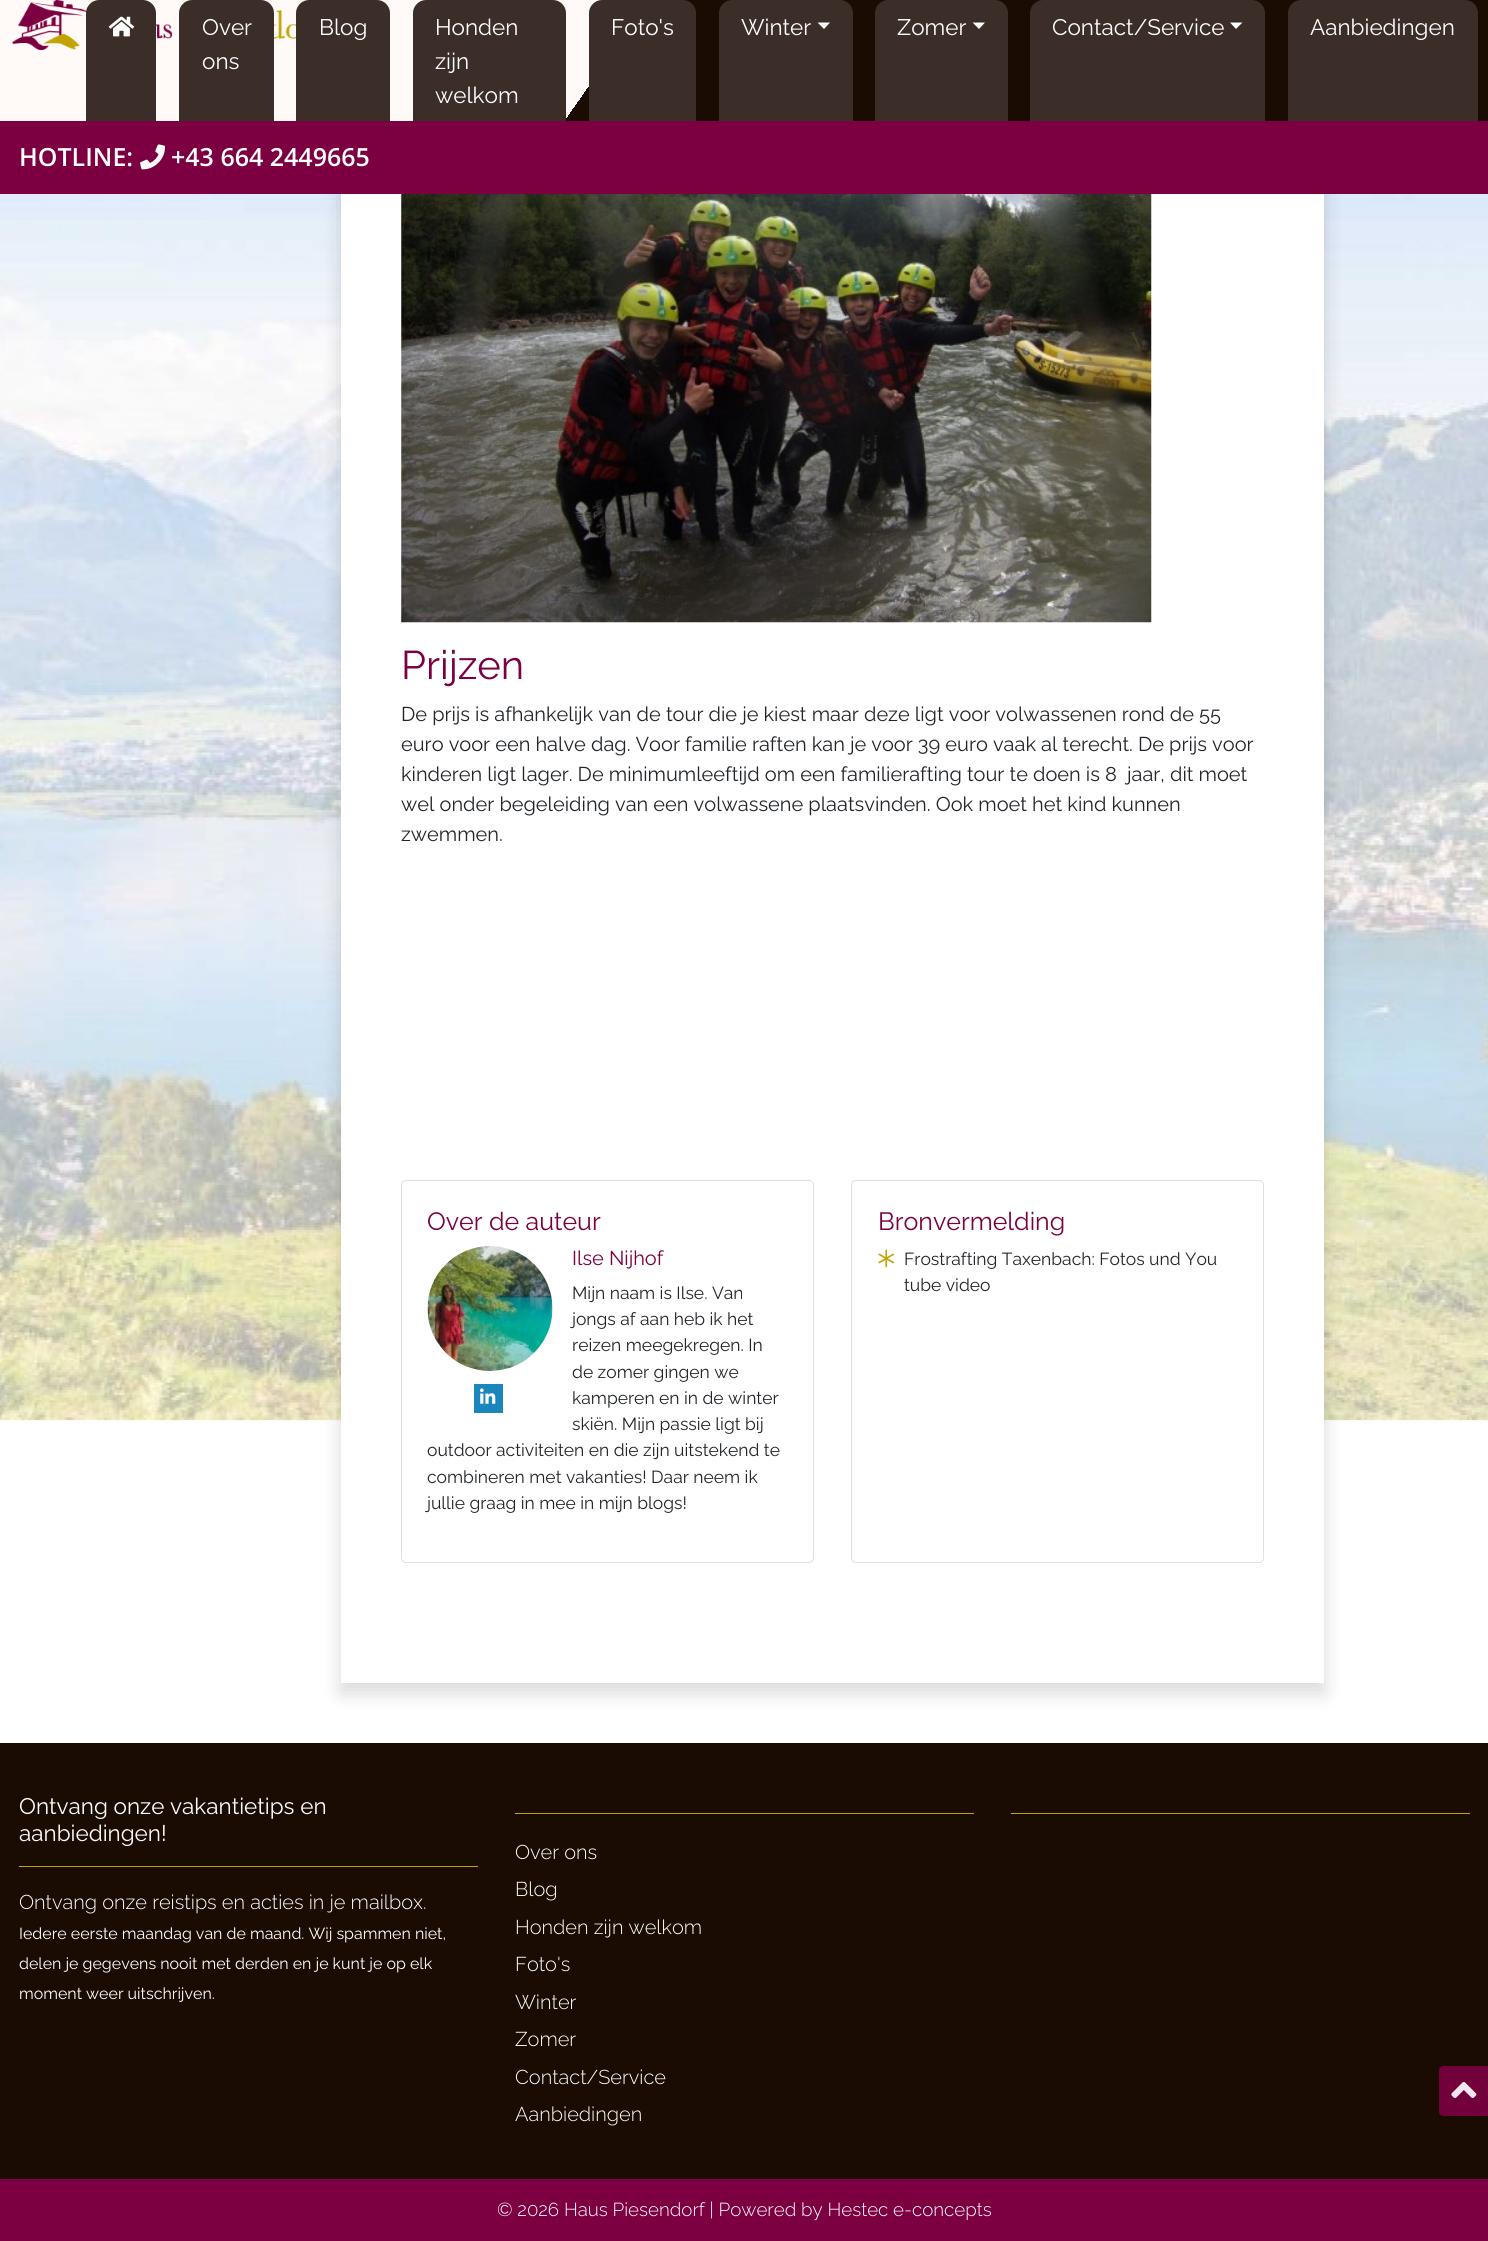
import math
import cairo


def use_color(cr, r, g, b):
  cr.set_source_rgb(r / 255, g / 255, b / 255)

def text(cr, x, y, s, family, size, color, bold=False, italic=False):
  cr.select_font_face(family, cairo.FONT_SLANT_ITALIC if italic else cairo.FONT_SLANT_NORMAL, cairo.FONT_WEIGHT_BOLD if bold else cairo.FONT_WEIGHT_NORMAL)
  cr.set_font_size(size)
  use_color(cr, *color)
  cr.move_to(x, y)
  cr.show_text(s)

def box(cr, x, y, w, h, *color):
  use_color(cr, *color)
  cr.rectangle(x, y, w, h)
  cr.fill()

def round_rect(cr, x, y, w, h, r):
  cr.new_sub_path()
  for i, (u, v) in enumerate([(x + w - r, y + h - r), (x + r, y + h - r), (x + r, y + r), (x + w - r, y + r)]):
    cr.arc(u, v, r, i * math.pi / 2, (i + 1) * math.pi / 2)
  cr.close_path()

def shadow(cr, x, y, w, h, r, blur, alpha):
  cr.push_group_with_content(cairo.CONTENT_ALPHA)
  cr.set_operator(cairo.OPERATOR_SOURCE)
  for i in range(15, -16, -2):
    e = blur * i / 6
    if min(w, h) + 2 * e > 0:
      cr.set_source_rgba(0, 0, 0, alpha * math.erfc((i - 1) / 8.5) / 2)
      round_rect(cr, x - e, y - e, w + 2 * e, h + 2 * e, max(0, min(r + e + blur * .6, min(w, h) / 2 + e)))
      cr.fill()
  cr.mask(cr.pop_group())

def picture(cr, path, x, y, w, h):
  cr.save()
  cr.set_source_surface(cairo.ImageSurface.create_from_png(path), x, y)
  cr.rectangle(x, y, w, h)
  cr.fill()
  cr.restore()

def draw(cr):
  use_color(cr, 255, 255, 255)
  cr.paint()
  picture(cr, "img_04.png", 0, 194, 1488, 1227)
  use_color(cr, 0, 0, 0)
  shadow(cr, 341, -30, 983, 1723, 0, 10, 0.15)
  gradient = cairo.LinearGradient(199, -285, 1289, 478)
  gradient.add_color_stop_rgba(0.4, 1, 0.98, 0.969, 1)
  gradient.add_color_stop_rgba(0.4, 0.102, 0.043, 0.012, 1)
  cr.set_source(gradient)
  cr.rectangle(0, 0, 1488, 121)
  cr.fill()
  picture(cr, "img_01.png", 12, 0, 284, 50)
  use_color(cr, 59, 46, 40)
  cr.new_path()
  cr.move_to(99, 0)
  cr.line_to(143, 0)
  cr.curve_to(150, 0, 156, 6, 156, 13)
  cr.line_to(156, 121)
  cr.line_to(86, 121)
  cr.line_to(86, 13)
  cr.curve_to(86, 6, 92, 0, 99, 0)
  cr.close_path()
  cr.fill()
  picture(cr, "img_02.png", 108, 16, 27, 21)
  cr.new_path()
  cr.move_to(192, 0)
  cr.line_to(261, 0)
  cr.curve_to(268, 0, 274, 6, 274, 13)
  cr.line_to(274, 121)
  cr.line_to(179, 121)
  cr.line_to(179, 13)
  cr.curve_to(179, 6, 185, 0, 192, 0)
  cr.close_path()
  cr.fill()
  cr.new_path()
  cr.move_to(309, 0)
  cr.line_to(377, 0)
  cr.curve_to(384, 0, 390, 6, 390, 13)
  cr.line_to(390, 121)
  cr.line_to(296, 121)
  cr.line_to(296, 13)
  cr.curve_to(296, 6, 302, 0, 309, 0)
  cr.close_path()
  cr.fill()
  cr.new_path()
  cr.move_to(426, 0)
  cr.line_to(553, 0)
  cr.curve_to(560, 0, 566, 6, 566, 13)
  cr.line_to(566, 121)
  cr.line_to(413, 121)
  cr.line_to(413, 13)
  cr.curve_to(413, 6, 419, 0, 426, 0)
  cr.close_path()
  cr.fill()
  cr.new_path()
  cr.move_to(602, 0)
  cr.line_to(683, 0)
  cr.curve_to(690, 0, 696, 6, 696, 13)
  cr.line_to(696, 121)
  cr.line_to(589, 121)
  cr.line_to(589, 13)
  cr.curve_to(589, 6, 595, 0, 602, 0)
  cr.close_path()
  cr.fill()
  cr.new_path()
  cr.move_to(732, 0)
  cr.line_to(840, 0)
  cr.curve_to(847, 0, 853, 6, 853, 13)
  cr.line_to(853, 121)
  cr.line_to(719, 121)
  cr.line_to(719, 13)
  cr.curve_to(719, 6, 725, 0, 732, 0)
  cr.close_path()
  cr.fill()
  use_color(cr, 255, 255, 255)
  cr.new_path()
  cr.move_to(817.5, 22.5)
  cr.line_to(830, 22.5)
  cr.line_to(824, 29)
  cr.close_path()
  cr.fill()
  use_color(cr, 59, 46, 40)
  cr.new_path()
  cr.move_to(888, 0)
  cr.line_to(995, 0)
  cr.curve_to(1002, 0, 1008, 6, 1008, 13)
  cr.line_to(1008, 121)
  cr.line_to(875, 121)
  cr.line_to(875, 13)
  cr.curve_to(875, 6, 881, 0, 888, 0)
  cr.close_path()
  cr.fill()
  use_color(cr, 255, 255, 255)
  cr.new_path()
  cr.move_to(972.5, 22.5)
  cr.line_to(985, 22.5)
  cr.line_to(979, 29)
  cr.close_path()
  cr.fill()
  use_color(cr, 59, 46, 40)
  cr.new_path()
  cr.move_to(1043, 0)
  cr.line_to(1252, 0)
  cr.curve_to(1259, 0, 1265, 6, 1265, 13)
  cr.line_to(1265, 121)
  cr.line_to(1030, 121)
  cr.line_to(1030, 13)
  cr.curve_to(1030, 6, 1036, 0, 1043, 0)
  cr.close_path()
  cr.fill()
  use_color(cr, 255, 255, 255)
  cr.new_path()
  cr.move_to(1230, 22.5)
  cr.line_to(1242.5, 22.5)
  cr.line_to(1236, 29)
  cr.close_path()
  cr.fill()
  use_color(cr, 59, 46, 40)
  cr.new_path()
  cr.move_to(1301, 0)
  cr.line_to(1465, 0)
  cr.curve_to(1472, 0, 1478, 6, 1478, 13)
  cr.line_to(1478, 121)
  cr.line_to(1288, 121)
  cr.line_to(1288, 13)
  cr.curve_to(1288, 6, 1294, 0, 1301, 0)
  cr.close_path()
  cr.fill()
  box(cr, 0, 121, 1488, 73, 124, 0, 65)
  picture(cr, "img_03.png", 140, 144, 25, 26)
  box(cr, 341, 194, 983, 1489, 255, 255, 255)
  picture(cr, "img_05.png", 401, 194, 751, 429)
  round_rect(cr, 401.5, 1180.5, 412, 382, 4.5)
  use_color(cr, 223, 223, 223)
  cr.set_line_width(1)
  cr.stroke()
  picture(cr, "img_06.png", 427, 1246, 126, 125)
  box(cr, 474, 1384, 29, 29, 27, 134, 188)
  picture(cr, "img_07.png", 480, 1388, 16, 16)
  round_rect(cr, 851.5, 1180.5, 412, 382, 4.5)
  use_color(cr, 223, 223, 223)
  cr.stroke()
  picture(cr, "img_08.png", 878, 1249, 17, 19)
  box(cr, 0, 1743, 1488, 436, 26, 11, 3)
  box(cr, 19, 1866, 459, 1, 194, 163, 3)
  box(cr, 1011, 1813, 459, 1, 194, 163, 3)
  box(cr, 515, 1813, 459, 1, 194, 163, 3)
  box(cr, 0, 2179, 1488, 62, 124, 0, 65)
  use_color(cr, 114, 1, 59)
  cr.new_path()
  cr.move_to(1443, 2066)
  cr.line_to(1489, 2066)
  cr.line_to(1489, 2116)
  cr.line_to(1443, 2116)
  cr.curve_to(1441, 2116, 1439, 2114, 1439, 2112)
  cr.line_to(1439, 2070)
  cr.curve_to(1439, 2068, 1441, 2066, 1443, 2066)
  cr.close_path()
  cr.fill()
  picture(cr, "img_09.png", 1451, 2082, 26, 16)
  text(cr, 202, 35, "Over", "Raleway Thin", 22.5, (255, 255, 255))
  text(cr, 202, 69, "ons", "Raleway Thin", 22.5, (255, 255, 255))
  text(cr, 319, 35, "Blog", "Raleway Thin", 22.5, (255, 255, 255))
  text(cr, 435, 35, "Honden", "Raleway Thin", 22.5, (255, 255, 255))
  text(cr, 435, 69, "zijn", "Raleway Thin", 22.5, (255, 255, 255))
  text(cr, 435, 103, "welkom", "Raleway Thin", 22.5, (255, 255, 255))
  text(cr, 611, 35, "Foto's", "Raleway Thin", 22.5, (255, 255, 255))
  text(cr, 741, 35, "Winter", "Raleway Thin", 22.5, (255, 255, 255))
  text(cr, 897, 35, "Zomer", "Raleway Thin", 22.5, (255, 255, 255))
  text(cr, 1052, 35, "Contact/Service", "Raleway Thin", 22.5, (255, 255, 255))
  text(cr, 1310, 35, "Aanbiedingen", "Raleway Thin", 22.5, (255, 255, 255))
  text(cr, 19, 166, "HOTLINE:", "Open Sans SemiBold", 25, (255, 255, 255))
  text(cr, 171, 166, "+43 664 2449665", "Open Sans SemiBold", 25, (255, 255, 255))
  text(cr, 401, 679, "Prijzen", "Raleway Thin", 40, (124, 0, 65))
  text(cr, 401, 721, "De prijs is afhankelijk van de tour die je kiest maar deze ligt voor volwassenen rond de 55", "Raleway Thin", 20, (33, 37, 41))
  text(cr, 401, 751, "euro voor een halve dag. Voor familie raften kan je voor 39 euro vaak al terecht. De prijs voor", "Raleway Thin", 20, (33, 37, 41))
  text(cr, 401, 781, "kinderen ligt lager. De minimumleeftijd om een familierafting tour te doen is 8  jaar, dit moet", "Raleway Thin", 20, (33, 37, 41))
  text(cr, 401, 811, "wel onder begeleiding van een volwassene plaatsvinden. Ook moet het kind kunnen", "Raleway Thin", 20, (33, 37, 41))
  text(cr, 401, 841, "zwemmen.", "Raleway Thin", 20, (33, 37, 41))
  text(cr, 427, 1230, "Over de auteur", "Raleway Thin", 25, (124, 0, 65))
  text(cr, 572, 1265, "Ilse Nijhof", "Raleway Thin", 20, (124, 0, 65))
  text(cr, 572, 1299, "Mijn naam is Ilse. Van", "Raleway Thin", 17.5, (33, 37, 41))
  text(cr, 572, 1325, "jongs af aan heb ik het", "Raleway Thin", 17.5, (33, 37, 41))
  text(cr, 572, 1351, "reizen meegekregen. In", "Raleway Thin", 17.5, (33, 37, 41))
  text(cr, 572, 1378, "de zomer gingen we", "Raleway Thin", 17.5, (33, 37, 41))
  text(cr, 572, 1404, "kamperen en in de winter", "Raleway Thin", 17.5, (33, 37, 41))
  text(cr, 572, 1430, "skiën. Mijn passie ligt bij", "Raleway Thin", 17.5, (33, 37, 41))
  text(cr, 427, 1456, "outdoor activiteiten en die zijn uitstekend te", "Raleway Thin", 17.5, (33, 37, 41))
  text(cr, 427, 1483, "combineren met vakanties! Daar neem ik", "Raleway Thin", 17.5, (33, 37, 41))
  text(cr, 427, 1509, "jullie graag in mee in mijn blogs!", "Raleway Thin", 17.5, (33, 37, 41))
  text(cr, 878, 1230, "Bronvermelding", "Raleway Thin", 25, (124, 0, 65))
  text(cr, 904, 1265, "Frostrafting Taxenbach: Fotos und You", "Raleway Thin", 17.5, (33, 37, 41))
  text(cr, 904, 1291, "tube video", "Raleway Thin", 17.5, (33, 37, 41))
  text(cr, 19, 1814, "Ontvang onze vakantietips en", "Raleway Thin", 22.5, (255, 255, 255))
  text(cr, 19, 1841, "aanbiedingen!", "Raleway Thin", 22.5, (255, 255, 255))
  text(cr, 19, 1909, "Ontvang onze reistips en acties in je mailbox.", "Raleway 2 Thin", 20, (255, 255, 255))
  text(cr, 19, 1939, "Iedere eerste maandag van de maand. Wij spammen niet,", "Raleway Thin", 16, (255, 255, 255))
  text(cr, 19, 1969, "delen je gegevens nooit met derden en je kunt je op elk", "Raleway Thin", 16, (255, 255, 255))
  text(cr, 19, 1999, "moment weer uitschrijven.", "Raleway Thin", 16, (255, 255, 255))
  text(cr, 515, 1859, "Over ons", "Raleway 2 Thin", 20, (255, 255, 255))
  text(cr, 515, 1896, "Blog", "Raleway 2 Thin", 20, (255, 255, 255))
  text(cr, 515, 1934, "Honden zijn welkom", "Raleway 2 Thin", 20, (255, 255, 255))
  text(cr, 515, 1971, "Foto's", "Raleway 2 Thin", 20, (255, 255, 255))
  text(cr, 515, 2009, "Winter", "Raleway 2 Thin", 20, (255, 255, 255))
  text(cr, 515, 2046, "Zomer", "Raleway 2 Thin", 20, (255, 255, 255))
  text(cr, 515, 2084, "Contact/Service", "Raleway 2 Thin", 20, (255, 255, 255))
  text(cr, 515, 2121, "Aanbiedingen", "Raleway 2 Thin", 20, (255, 255, 255))
  text(cr, 497, 2216, "© 2026 Haus Piesendorf | Powered by Hestec e-concepts", "Raleway 2 Thin", 18.75, (255, 255, 255))


surface = cairo.ImageSurface(cairo.FORMAT_RGB24, 1488, 2241)
cr = cairo.Context(surface)
options = cairo.FontOptions()
options.set_hint_metrics(cairo.HINT_METRICS_OFF)
options.set_hint_style(cairo.HINT_STYLE_NONE)
cr.set_font_options(options)
cr.set_miter_limit(4)
draw(cr)
surface.write_to_png("out.png")
